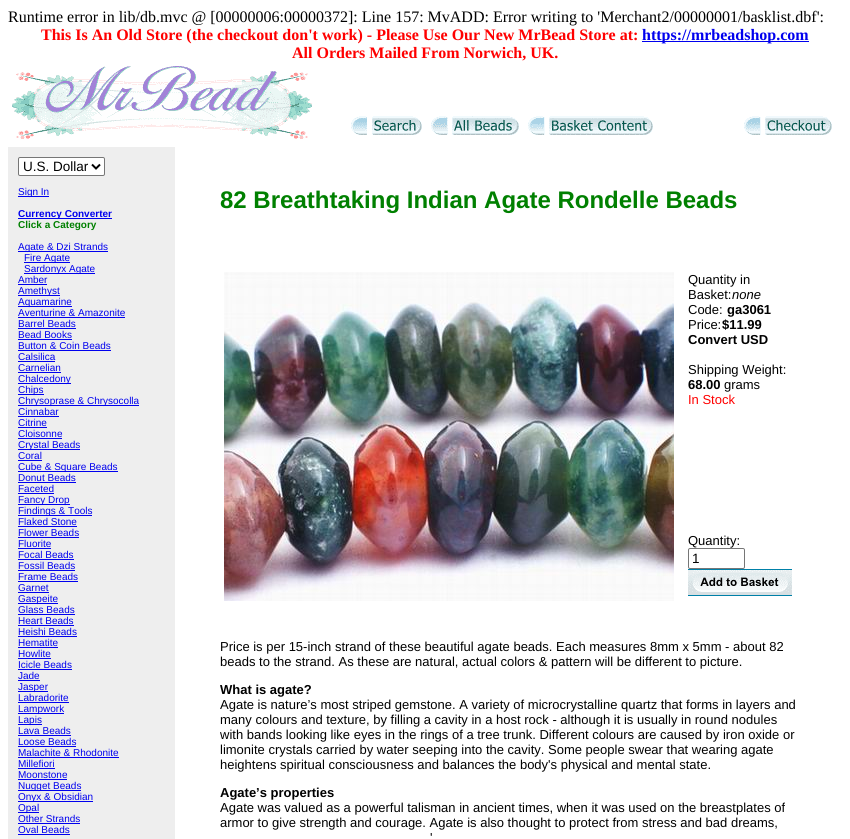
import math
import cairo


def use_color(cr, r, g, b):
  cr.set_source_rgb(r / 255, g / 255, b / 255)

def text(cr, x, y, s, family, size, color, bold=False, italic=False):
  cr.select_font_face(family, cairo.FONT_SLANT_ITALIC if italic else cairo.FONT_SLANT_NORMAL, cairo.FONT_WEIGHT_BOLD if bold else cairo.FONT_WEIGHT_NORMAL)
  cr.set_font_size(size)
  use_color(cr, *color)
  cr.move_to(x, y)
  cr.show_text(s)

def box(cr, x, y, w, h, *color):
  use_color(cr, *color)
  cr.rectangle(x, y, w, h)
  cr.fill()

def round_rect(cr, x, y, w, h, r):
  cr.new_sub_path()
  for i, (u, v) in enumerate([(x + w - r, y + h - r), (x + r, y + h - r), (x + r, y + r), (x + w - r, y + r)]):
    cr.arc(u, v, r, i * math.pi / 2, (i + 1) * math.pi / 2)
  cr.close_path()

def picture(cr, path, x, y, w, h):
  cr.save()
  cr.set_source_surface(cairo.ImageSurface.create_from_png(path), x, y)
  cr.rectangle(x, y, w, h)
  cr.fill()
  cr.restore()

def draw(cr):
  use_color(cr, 255, 255, 255)
  cr.paint()
  box(cr, 642, 41, 167, 1, 0, 0, 238)
  picture(cr, "img_01.png", 12, 66, 300, 73)
  picture(cr, "img_02.png", 351, 116, 71, 19)
  picture(cr, "img_03.png", 431, 116, 88, 19)
  picture(cr, "img_04.png", 528, 116, 125, 19)
  picture(cr, "img_05.png", 744, 116, 88, 19)
  box(cr, 8, 147, 167, 692, 238, 238, 238)
  use_color(cr, 255, 255, 255)
  round_rect(cr, 18.5, 157.5, 86, 18, 1.5)
  cr.fill_preserve()
  use_color(cr, 118, 118, 118)
  cr.set_line_width(1)
  cr.stroke()
  cr.new_path()
  cr.move_to(92, 164.5)
  cr.line_to(96, 168.5)
  cr.line_to(100, 164.5)
  use_color(cr, 0, 0, 0)
  cr.set_line_width(2)
  cr.stroke()
  box(cr, 18, 196, 31, 1, 0, 0, 238)
  box(cr, 18, 218, 94, 1, 0, 0, 238)
  box(cr, 18, 251, 90, 1, 0, 0, 238)
  box(cr, 24, 262, 46, 1, 0, 0, 238)
  box(cr, 24, 273, 71, 1, 0, 0, 238)
  box(cr, 18, 284, 29, 1, 0, 0, 238)
  box(cr, 18, 295, 42, 1, 0, 0, 238)
  box(cr, 18, 306, 54, 1, 0, 0, 238)
  box(cr, 18, 317, 107, 1, 0, 0, 238)
  box(cr, 18, 328, 58, 1, 0, 0, 238)
  box(cr, 18, 339, 54, 1, 0, 0, 238)
  box(cr, 18, 350, 93, 1, 0, 0, 238)
  box(cr, 18, 361, 37, 1, 0, 0, 238)
  box(cr, 18, 372, 43, 1, 0, 0, 238)
  box(cr, 18, 383, 53, 1, 0, 0, 238)
  box(cr, 18, 394, 26, 1, 0, 0, 238)
  box(cr, 18, 405, 121, 1, 0, 0, 238)
  box(cr, 18, 416, 41, 1, 0, 0, 238)
  box(cr, 18, 427, 29, 1, 0, 0, 238)
  box(cr, 18, 438, 44, 1, 0, 0, 238)
  box(cr, 18, 449, 62, 1, 0, 0, 238)
  box(cr, 18, 460, 24, 1, 0, 0, 238)
  box(cr, 18, 471, 100, 1, 0, 0, 238)
  box(cr, 18, 482, 58, 1, 0, 0, 238)
  box(cr, 18, 493, 36, 1, 0, 0, 238)
  box(cr, 18, 504, 52, 1, 0, 0, 238)
  box(cr, 18, 515, 74, 1, 0, 0, 238)
  box(cr, 18, 526, 59, 1, 0, 0, 238)
  box(cr, 18, 537, 61, 1, 0, 0, 238)
  box(cr, 18, 548, 33, 1, 0, 0, 238)
  box(cr, 18, 559, 56, 1, 0, 0, 238)
  box(cr, 18, 570, 57, 1, 0, 0, 238)
  box(cr, 18, 581, 60, 1, 0, 0, 238)
  box(cr, 18, 592, 31, 1, 0, 0, 238)
  box(cr, 18, 603, 40, 1, 0, 0, 238)
  box(cr, 18, 614, 57, 1, 0, 0, 238)
  box(cr, 18, 625, 56, 1, 0, 0, 238)
  box(cr, 18, 636, 59, 1, 0, 0, 238)
  box(cr, 18, 647, 40, 1, 0, 0, 238)
  box(cr, 18, 658, 33, 1, 0, 0, 238)
  box(cr, 18, 669, 54, 1, 0, 0, 238)
  box(cr, 18, 680, 22, 1, 0, 0, 238)
  box(cr, 18, 691, 30, 1, 0, 0, 238)
  box(cr, 18, 702, 51, 1, 0, 0, 238)
  box(cr, 18, 713, 46, 1, 0, 0, 238)
  box(cr, 18, 724, 24, 1, 0, 0, 238)
  box(cr, 18, 735, 53, 1, 0, 0, 238)
  box(cr, 18, 746, 58, 1, 0, 0, 238)
  box(cr, 18, 757, 101, 1, 0, 0, 238)
  box(cr, 18, 768, 37, 1, 0, 0, 238)
  box(cr, 18, 779, 49, 1, 0, 0, 238)
  box(cr, 18, 790, 63, 1, 0, 0, 238)
  box(cr, 18, 801, 75, 1, 0, 0, 238)
  box(cr, 18, 812, 21, 1, 0, 0, 238)
  box(cr, 18, 823, 62, 1, 0, 0, 238)
  box(cr, 18, 834, 52, 1, 0, 0, 238)
  picture(cr, "img_06.png", 224, 272, 450, 329)
  round_rect(cr, 688.5, 548.5, 56, 20, 1.5)
  use_color(cr, 118, 118, 118)
  cr.set_line_width(1)
  cr.stroke()
  picture(cr, "img_07.png", 688, 569, 104, 27)
  text(cr, 8, 22, "Runtime error in lib/db.mvc @ [00000006:00000372]: Line 157: MvADD: Error writing to 'Merchant2/00000001/basklist.dbf':", "Liberation Serif", 16, (0, 0, 0))
  text(cr, 41, 40, "This Is An Old Store (the checkout don't work) - Please Use Our New MrBead Store at:", "Liberation Serif", 16, (255, 0, 0), bold=True)
  text(cr, 642, 40, "https://mrbeadshop.com", "Liberation Serif", 16, (0, 0, 238), bold=True)
  text(cr, 292, 58, "All Orders Mailed From Norwich, UK.", "Liberation Serif", 16, (255, 0, 0), bold=True)
  text(cr, 23, 171, "U.S. Dollar", "Liberation Sans", 13.5, (0, 0, 0))
  text(cr, 18, 195, "Sign In", "Liberation Sans", 10, (0, 0, 238))
  text(cr, 18, 217, "Currency Converter", "Liberation Sans", 10, (0, 0, 238), bold=True)
  text(cr, 18, 228, "Click a Category", "Liberation Sans", 10, (0, 128, 0), bold=True)
  text(cr, 18, 250, "Agate & Dzi Strands", "Liberation Sans", 10, (0, 0, 238))
  text(cr, 24, 261, "Fire Agate", "Liberation Sans", 10, (0, 0, 238))
  text(cr, 24, 272, "Sardonyx Agate", "Liberation Sans", 10, (0, 0, 238))
  text(cr, 18, 283, "Amber", "Liberation Sans", 10, (0, 0, 238))
  text(cr, 18, 294, "Amethyst", "Liberation Sans", 10, (0, 0, 238))
  text(cr, 18, 305, "Aquamarine", "Liberation Sans", 10, (0, 0, 238))
  text(cr, 18, 316, "Aventurine & Amazonite", "Liberation Sans", 10, (0, 0, 238))
  text(cr, 18, 327, "Barrel Beads", "Liberation Sans", 10, (0, 0, 238))
  text(cr, 18, 338, "Bead Books", "Liberation Sans", 10, (0, 0, 238))
  text(cr, 18, 349, "Button & Coin Beads", "Liberation Sans", 10, (0, 0, 238))
  text(cr, 18, 360, "Calsilica", "Liberation Sans", 10, (0, 0, 238))
  text(cr, 18, 371, "Carnelian", "Liberation Sans", 10, (0, 0, 238))
  text(cr, 18, 382, "Chalcedony", "Liberation Sans", 10, (0, 0, 238))
  text(cr, 18, 393, "Chips", "Liberation Sans", 10, (0, 0, 238))
  text(cr, 18, 404, "Chrysoprase & Chrysocolla", "Liberation Sans", 10, (0, 0, 238))
  text(cr, 18, 415, "Cinnabar", "Liberation Sans", 10, (0, 0, 238))
  text(cr, 18, 426, "Citrine", "Liberation Sans", 10, (0, 0, 238))
  text(cr, 18, 437, "Cloisonne", "Liberation Sans", 10, (0, 0, 238))
  text(cr, 18, 448, "Crystal Beads", "Liberation Sans", 10, (0, 0, 238))
  text(cr, 18, 459, "Coral", "Liberation Sans", 10, (0, 0, 238))
  text(cr, 18, 470, "Cube & Square Beads", "Liberation Sans", 10, (0, 0, 238))
  text(cr, 18, 481, "Donut Beads", "Liberation Sans", 10, (0, 0, 238))
  text(cr, 18, 492, "Faceted", "Liberation Sans", 10, (0, 0, 238))
  text(cr, 18, 503, "Fancy Drop", "Liberation Sans", 10, (0, 0, 238))
  text(cr, 18, 514, "Findings & Tools", "Liberation Sans", 10, (0, 0, 238))
  text(cr, 18, 525, "Flaked Stone", "Liberation Sans", 10, (0, 0, 238))
  text(cr, 18, 536, "Flower Beads", "Liberation Sans", 10, (0, 0, 238))
  text(cr, 18, 547, "Fluorite", "Liberation Sans", 10, (0, 0, 238))
  text(cr, 18, 558, "Focal Beads", "Liberation Sans", 10, (0, 0, 238))
  text(cr, 18, 569, "Fossil Beads", "Liberation Sans", 10, (0, 0, 238))
  text(cr, 18, 580, "Frame Beads", "Liberation Sans", 10, (0, 0, 238))
  text(cr, 18, 591, "Garnet", "Liberation Sans", 10, (0, 0, 238))
  text(cr, 18, 602, "Gaspeite", "Liberation Sans", 10, (0, 0, 238))
  text(cr, 18, 613, "Glass Beads", "Liberation Sans", 10, (0, 0, 238))
  text(cr, 18, 624, "Heart Beads", "Liberation Sans", 10, (0, 0, 238))
  text(cr, 18, 635, "Heishi Beads", "Liberation Sans", 10, (0, 0, 238))
  text(cr, 18, 646, "Hematite", "Liberation Sans", 10, (0, 0, 238))
  text(cr, 18, 657, "Howlite", "Liberation Sans", 10, (0, 0, 238))
  text(cr, 18, 668, "Icicle Beads", "Liberation Sans", 10, (0, 0, 238))
  text(cr, 18, 679, "Jade", "Liberation Sans", 10, (0, 0, 238))
  text(cr, 18, 690, "Jasper", "Liberation Sans", 10, (0, 0, 238))
  text(cr, 18, 701, "Labradorite", "Liberation Sans", 10, (0, 0, 238))
  text(cr, 18, 712, "Lampwork", "Liberation Sans", 10, (0, 0, 238))
  text(cr, 18, 723, "Lapis", "Liberation Sans", 10, (0, 0, 238))
  text(cr, 18, 734, "Lava Beads", "Liberation Sans", 10, (0, 0, 238))
  text(cr, 18, 745, "Loose Beads", "Liberation Sans", 10, (0, 0, 238))
  text(cr, 18, 756, "Malachite & Rhodonite", "Liberation Sans", 10, (0, 0, 238))
  text(cr, 18, 767, "Millefiori", "Liberation Sans", 10, (0, 0, 238))
  text(cr, 18, 778, "Moonstone", "Liberation Sans", 10, (0, 0, 238))
  text(cr, 18, 789, "Nugget Beads", "Liberation Sans", 10, (0, 0, 238))
  text(cr, 18, 800, "Onyx & Obsidian", "Liberation Sans", 10, (0, 0, 238))
  text(cr, 18, 811, "Opal", "Liberation Sans", 10, (0, 0, 238))
  text(cr, 18, 822, "Other Strands", "Liberation Sans", 10, (0, 0, 238))
  text(cr, 18, 833, "Oval Beads", "Liberation Sans", 10, (0, 0, 238))
  text(cr, 220, 208, "82 Breathtaking Indian Agate Rondelle Beads", "Liberation Sans", 24, (0, 128, 0), bold=True)
  text(cr, 688, 284, "Quantity in", "Liberation Sans", 13, (0, 0, 0))
  text(cr, 688, 299, "Basket:", "Liberation Sans", 13, (0, 0, 0))
  text(cr, 732, 299, "none", "Liberation Sans", 13, (0, 0, 0), italic=True)
  text(cr, 688, 314, "Code:", "Liberation Sans", 13, (0, 0, 0))
  text(cr, 727, 314, "ga3061", "Liberation Sans", 13, (0, 0, 0), bold=True)
  text(cr, 688, 329, "Price:", "Liberation Sans", 13, (0, 0, 0))
  text(cr, 722, 329, "$11.99", "Liberation Sans", 13, (0, 0, 0), bold=True)
  text(cr, 688, 344, "Convert USD", "Liberation Sans", 13, (0, 0, 0), bold=True)
  text(cr, 688, 374, "Shipping Weight:", "Liberation Sans", 13, (0, 0, 0))
  text(cr, 688, 389, "68.00", "Liberation Sans", 13, (0, 0, 0), bold=True)
  text(cr, 724, 389, "grams", "Liberation Sans", 13, (0, 0, 0))
  text(cr, 688, 404, "In Stock", "Liberation Sans", 13, (255, 0, 0))
  text(cr, 688, 545, "Quantity:", "Liberation Sans", 13, (0, 0, 0))
  text(cr, 692, 563, "1", "Liberation Sans", 13.5, (0, 0, 0))
  text(cr, 220, 651, "Price is per 15-inch strand of these beautiful agate beads. Each measures 8mm x 5mm - about 82", "Liberation Sans", 13, (0, 0, 0))
  text(cr, 220, 666, "beads to the strand. As these are natural, actual colors & pattern will be different to picture.", "Liberation Sans", 13, (0, 0, 0))
  text(cr, 220, 694, "What is agate?", "Liberation Sans", 13, (0, 0, 0), bold=True)
  text(cr, 220, 709, "Agate is nature’s most striped gemstone. A variety of microcrystalline quartz that forms in layers and", "Liberation Sans", 13, (0, 0, 0))
  text(cr, 220, 724, "many colours and texture, by filling a cavity in a host rock - although it is usually in round nodules", "Liberation Sans", 13, (0, 0, 0))
  text(cr, 220, 739, "with bands looking like eyes in the rings of a tree trunk. Different colours are caused by iron oxide or", "Liberation Sans", 13, (0, 0, 0))
  text(cr, 220, 754, "limonite crystals carried by water seeping into the cavity. Some people swear that wearing agate", "Liberation Sans", 13, (0, 0, 0))
  text(cr, 220, 769, "heightens spiritual consciousness and balances the body's physical and mental state.", "Liberation Sans", 13, (0, 0, 0))
  text(cr, 220, 797, "Agate’s properties", "Liberation Sans", 13, (0, 0, 0), bold=True)
  text(cr, 220, 812, "Agate was valued as a powerful talisman in ancient times, when it was used on the breastplates of", "Liberation Sans", 13, (0, 0, 0))
  text(cr, 220, 827, "armor to give strength and courage. Agate is also thought to protect from stress and bad dreams,", "Liberation Sans", 13, (0, 0, 0))
  text(cr, 430, 842, "'", "Liberation Sans", 13, (0, 0, 0))


surface = cairo.ImageSurface(cairo.FORMAT_RGB24, 850, 839)
cr = cairo.Context(surface)
options = cairo.FontOptions()
options.set_hint_metrics(cairo.HINT_METRICS_OFF)
options.set_hint_style(cairo.HINT_STYLE_NONE)
cr.set_font_options(options)
cr.set_miter_limit(4)
draw(cr)
surface.write_to_png("out.png")
